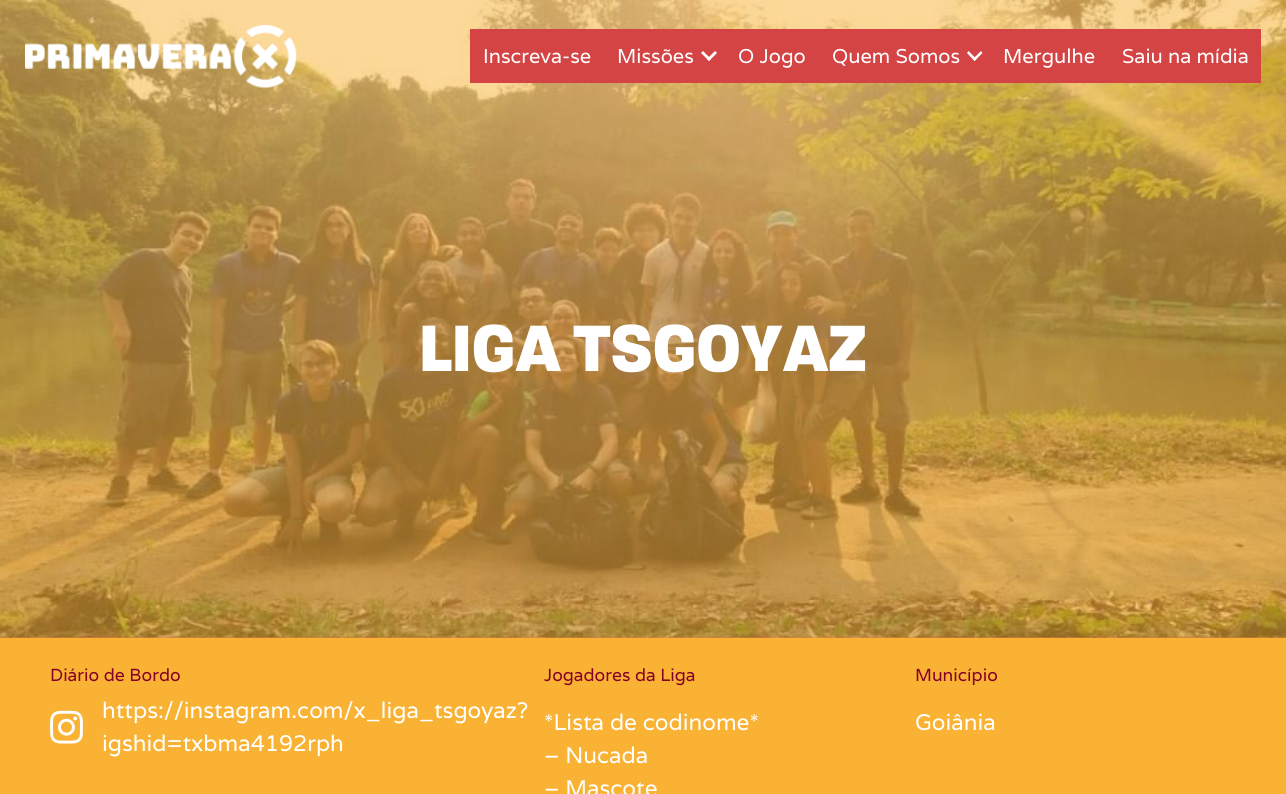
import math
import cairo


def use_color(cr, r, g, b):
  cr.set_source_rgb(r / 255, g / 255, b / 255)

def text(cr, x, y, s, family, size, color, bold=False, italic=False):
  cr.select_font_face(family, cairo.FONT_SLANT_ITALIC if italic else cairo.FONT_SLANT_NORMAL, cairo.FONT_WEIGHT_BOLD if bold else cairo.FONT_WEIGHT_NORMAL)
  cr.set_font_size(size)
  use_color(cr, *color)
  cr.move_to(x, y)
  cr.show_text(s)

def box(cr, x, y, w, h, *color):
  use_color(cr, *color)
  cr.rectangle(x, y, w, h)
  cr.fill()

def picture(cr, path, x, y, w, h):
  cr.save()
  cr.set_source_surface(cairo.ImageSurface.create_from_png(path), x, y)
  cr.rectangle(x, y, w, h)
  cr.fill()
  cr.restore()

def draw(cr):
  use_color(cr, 231, 123, 60)
  cr.paint()
  picture(cr, "img_02.png", 0, 0, 1286, 638)
  picture(cr, "img_01.png", 25, 25, 272, 63)
  box(cr, 470, 29, 791, 54, 212, 68, 68)
  use_color(cr, 255, 255, 255)
  cr.new_path()
  cr.move_to(715, 51)
  cr.line_to(717, 53)
  cr.line_to(709, 61)
  cr.line_to(707, 59)
  cr.close_path()
  cr.fill()
  cr.new_path()
  cr.move_to(703, 51)
  cr.line_to(711, 59)
  cr.line_to(709, 61)
  cr.line_to(701, 53)
  cr.close_path()
  cr.fill()
  cr.new_path()
  cr.move_to(981, 51)
  cr.line_to(982.5, 53)
  cr.line_to(974.5, 61)
  cr.line_to(973, 59)
  cr.close_path()
  cr.fill()
  cr.new_path()
  cr.move_to(968.5, 51)
  cr.line_to(976.5, 59)
  cr.line_to(974.5, 61)
  cr.line_to(967, 53)
  cr.close_path()
  cr.fill()
  box(cr, 0, 638, 1286, 156, 249, 178, 51)
  picture(cr, "img_03.png", 50, 710, 33, 34)
  text(cr, 483, 63, "Inscreva-se", "Varela", 20, (255, 255, 255))
  text(cr, 617, 63, "Missões", "Varela", 20, (255, 255, 255))
  text(cr, 738, 63, "O Jogo", "Varela", 20, (255, 255, 255))
  text(cr, 832, 63, "Quem Somos", "Varela", 20, (255, 255, 255))
  text(cr, 1003, 63, "Mergulhe", "Varela", 20, (255, 255, 255))
  text(cr, 1122, 63, "Saiu na mídia", "Varela", 20, (255, 255, 255))
  text(cr, 419, 371, "LIGA TSGOYAZ", "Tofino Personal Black", 62.5, (255, 255, 255))
  text(cr, 50, 681, "Diário de Bordo", "Varela", 17.5, (132, 1, 40))
  text(cr, 102, 718, "https://instagram.com/x_liga_tsgoyaz?", "Varela", 22.5, (255, 255, 255))
  text(cr, 102, 751, "igshid=txbma4192rph", "Varela", 22.5, (255, 255, 255))
  text(cr, 544, 681, "Jogadores da Liga", "Varela", 17.5, (132, 1, 40))
  text(cr, 544, 730, "*Lista de codinome*", "Varela", 22.5, (255, 255, 255))
  text(cr, 544, 763, "– Nucada", "Varela", 22.5, (255, 255, 255))
  text(cr, 544, 796, "– Mascote", "Varela", 22.5, (255, 255, 255))
  text(cr, 915, 681, "Município", "Varela", 17.5, (132, 1, 40))
  text(cr, 915, 730, "Goiânia", "Varela", 22.5, (255, 255, 255))


surface = cairo.ImageSurface(cairo.FORMAT_RGB24, 1286, 794)
cr = cairo.Context(surface)
options = cairo.FontOptions()
options.set_hint_metrics(cairo.HINT_METRICS_OFF)
options.set_hint_style(cairo.HINT_STYLE_NONE)
cr.set_font_options(options)
cr.set_miter_limit(4)
draw(cr)
surface.write_to_png("out.png")
